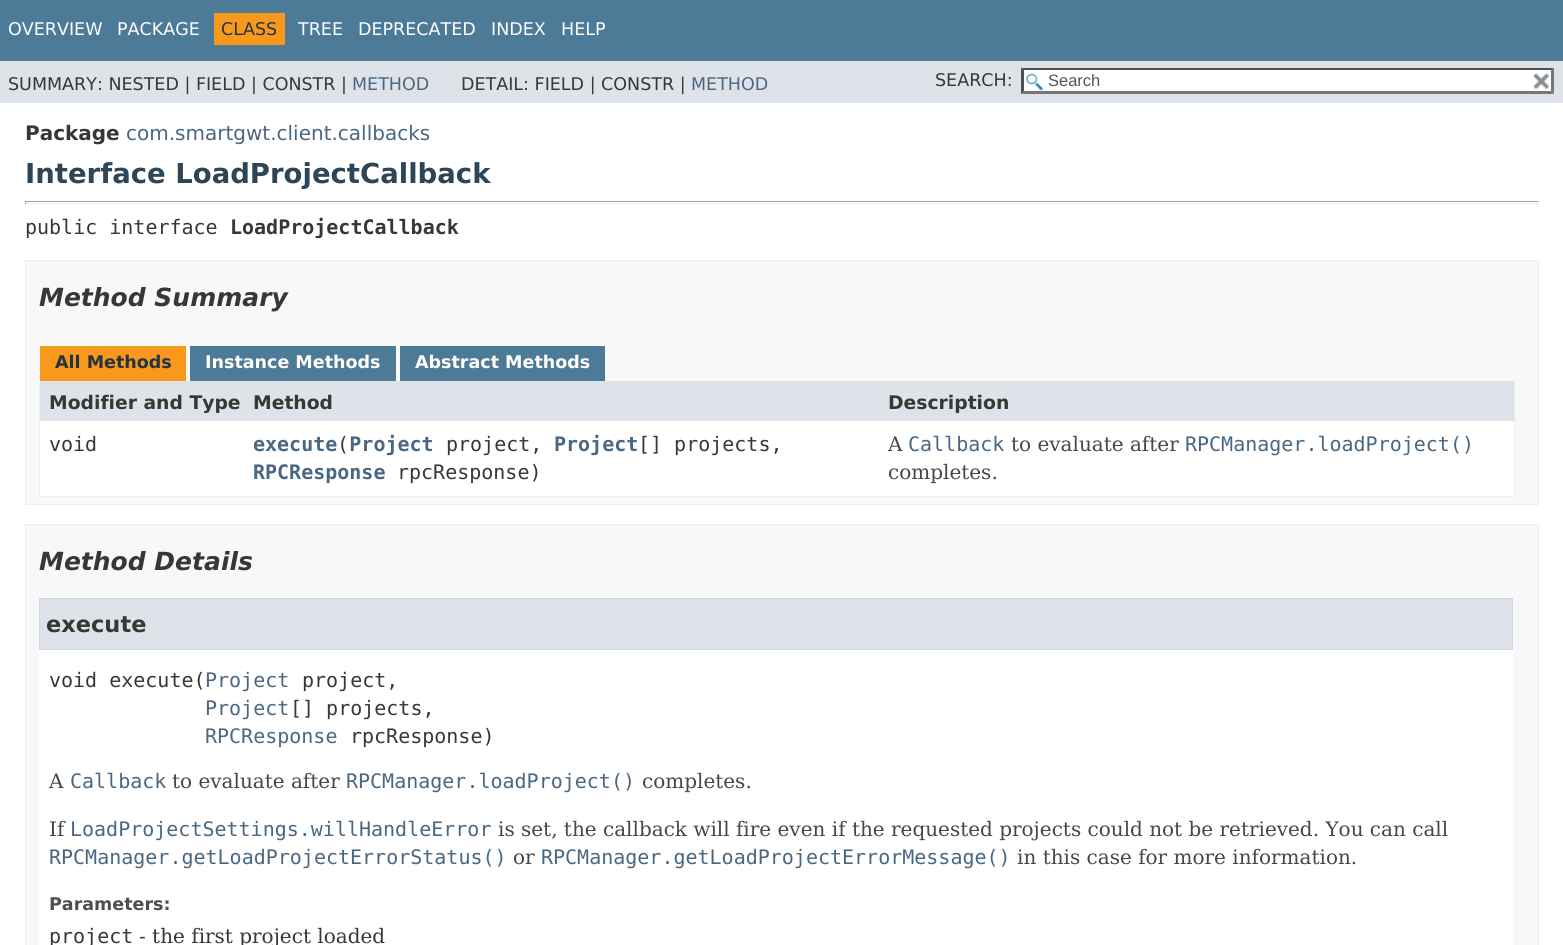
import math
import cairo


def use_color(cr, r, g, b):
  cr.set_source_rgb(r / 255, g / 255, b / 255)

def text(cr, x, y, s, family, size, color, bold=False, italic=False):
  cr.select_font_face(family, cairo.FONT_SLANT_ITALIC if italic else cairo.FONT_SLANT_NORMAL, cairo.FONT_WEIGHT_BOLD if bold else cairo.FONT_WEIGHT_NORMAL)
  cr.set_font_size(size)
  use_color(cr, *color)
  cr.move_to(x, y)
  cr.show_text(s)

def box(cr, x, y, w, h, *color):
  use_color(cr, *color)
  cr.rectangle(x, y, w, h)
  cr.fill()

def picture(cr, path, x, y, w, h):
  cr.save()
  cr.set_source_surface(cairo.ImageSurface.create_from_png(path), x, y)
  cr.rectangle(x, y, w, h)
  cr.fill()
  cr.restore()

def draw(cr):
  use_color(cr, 255, 255, 255)
  cr.paint()
  box(cr, 0, 0, 1563, 61, 77, 122, 151)
  box(cr, 214, 13, 71, 32, 248, 152, 29)
  box(cr, 0, 61, 1563, 42, 222, 227, 233)
  box(cr, 1021, 68, 533, 26, 255, 255, 255)
  picture(cr, "img_01.png", 1026, 73, 17, 17)
  use_color(cr, 79, 79, 79)
  cr.new_path()
  cr.move_to(1021, 68)
  cr.line_to(1554, 68)
  cr.line_to(1551, 70)
  cr.line_to(1024, 70)
  cr.close_path()
  cr.fill()
  use_color(cr, 118, 118, 118)
  cr.new_path()
  cr.move_to(1554, 67.5)
  cr.line_to(1554, 94)
  cr.line_to(1551, 91)
  cr.line_to(1551, 70)
  cr.close_path()
  cr.fill()
  cr.new_path()
  cr.move_to(1554, 94)
  cr.line_to(1021, 94)
  cr.line_to(1024, 91)
  cr.line_to(1551, 91)
  cr.close_path()
  cr.fill()
  use_color(cr, 79, 79, 79)
  cr.new_path()
  cr.move_to(1021, 94)
  cr.line_to(1021, 67.5)
  cr.line_to(1024, 70)
  cr.line_to(1024, 91)
  cr.close_path()
  cr.fill()
  picture(cr, "img_02.png", 1533, 73, 17, 17)
  box(cr, 25, 201, 1514, 1, 159, 159, 159)
  box(cr, 1538, 201, 1, 3, 238, 238, 238)
  box(cr, 25, 203, 1514, 1, 238, 238, 238)
  box(cr, 25, 201, 1, 3, 159, 159, 159)
  use_color(cr, 248, 248, 248)
  cr.rectangle(25.5, 260.5, 1513, 244)
  cr.fill_preserve()
  use_color(cr, 237, 237, 237)
  cr.set_line_width(1)
  cr.stroke()
  box(cr, 40, 346, 146, 35, 248, 152, 29)
  box(cr, 190, 346, 206, 35, 77, 122, 151)
  box(cr, 400, 346, 205, 35, 77, 122, 151)
  box(cr, 1514, 381, 1, 117, 238, 238, 238)
  box(cr, 39, 496, 1476, 1, 238, 238, 238)
  box(cr, 39, 381, 1, 117, 238, 238, 238)
  box(cr, 40, 381, 839, 40, 222, 227, 233)
  box(cr, 879, 381, 635, 40, 222, 227, 233)
  box(cr, 40, 421, 839, 75, 255, 255, 255)
  box(cr, 879, 421, 635, 75, 255, 255, 255)
  use_color(cr, 248, 248, 248)
  cr.rectangle(25.5, 524.5, 1513, 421)
  cr.fill_preserve()
  use_color(cr, 237, 237, 237)
  cr.stroke()
  box(cr, 39, 650, 1474, 295, 255, 255, 255)
  use_color(cr, 222, 227, 233)
  cr.rectangle(39.5, 598.5, 1473, 51)
  cr.fill_preserve()
  use_color(cr, 208, 217, 224)
  cr.stroke()
  text(cr, 8, 35, "OVERVIEW", "DejaVu Sans", 17.5, (255, 255, 255))
  text(cr, 117, 35, "PACKAGE", "DejaVu Sans", 17.5, (255, 255, 255))
  text(cr, 221, 35, "CLASS", "DejaVu Sans", 17.5, (37, 52, 65))
  text(cr, 298, 35, "TREE", "DejaVu Sans", 17.5, (255, 255, 255))
  text(cr, 358, 35, "DEPRECATED", "DejaVu Sans", 17.5, (255, 255, 255))
  text(cr, 491, 35, "INDEX", "DejaVu Sans", 17.5, (255, 255, 255))
  text(cr, 561, 35, "HELP", "DejaVu Sans", 17.5, (255, 255, 255))
  text(cr, 8, 90, "SUMMARY: NESTED | FIELD | CONSTR |", "DejaVu Sans", 17.5, (53, 56, 51))
  text(cr, 352, 90, "METHOD", "DejaVu Sans", 17.5, (74, 103, 130))
  text(cr, 461, 90, "DETAIL: FIELD | CONSTR |", "DejaVu Sans", 17.5, (53, 56, 51))
  text(cr, 691, 90, "METHOD", "DejaVu Sans", 17.5, (74, 103, 130))
  text(cr, 935, 86, "SEARCH:", "DejaVu Sans", 17.5, (53, 56, 51))
  text(cr, 1048, 86, "Search", "Liberation Sans", 16.5, (84, 84, 84))
  text(cr, 25, 140, "Package", "DejaVu Sans", 20, (53, 56, 51), bold=True)
  text(cr, 126, 140, "com.smartgwt.client.callbacks", "DejaVu Sans", 20, (74, 103, 130))
  text(cr, 25, 183, "Interface LoadProjectCallback", "DejaVu Sans", 27.5, (44, 69, 87), bold=True)
  text(cr, 25, 234, "public interface", "DejaVu Sans Mono", 20, (53, 56, 51))
  text(cr, 230, 234, "LoadProjectCallback", "DejaVu Sans Mono", 20, (53, 56, 51), bold=True)
  text(cr, 39, 306, "Method Summary", "DejaVu Sans", 25, (53, 56, 51), bold=True, italic=True)
  text(cr, 55, 368, "All Methods", "DejaVu Sans", 17.5, (37, 52, 65), bold=True)
  text(cr, 205, 368, "Instance Methods", "DejaVu Sans", 17.5, (255, 255, 255), bold=True)
  text(cr, 415, 368, "Abstract Methods", "DejaVu Sans", 17.5, (255, 255, 255), bold=True)
  text(cr, 49, 409, "Modifier and Type", "DejaVu Sans", 18.75, (53, 56, 51), bold=True)
  text(cr, 253, 409, "Method", "DejaVu Sans", 18.75, (53, 56, 51), bold=True)
  text(cr, 888, 409, "Description", "DejaVu Sans", 18.75, (53, 56, 51), bold=True)
  text(cr, 49, 451, "void", "DejaVu Sans Mono", 20, (53, 56, 51))
  text(cr, 253, 451, "execute Project", "DejaVu Sans Mono", 20, (74, 103, 130), bold=True)
  text(cr, 554, 451, "Project", "DejaVu Sans Mono", 20, (74, 103, 130), bold=True)
  text(cr, 337, 451, "(", "DejaVu Sans Mono", 20, (53, 56, 51))
  text(cr, 446, 451, "project,", "DejaVu Sans Mono", 20, (53, 56, 51))
  text(cr, 638, 451, "[] projects,", "DejaVu Sans Mono", 20, (53, 56, 51))
  text(cr, 253, 479, "RPCResponse", "DejaVu Sans Mono", 20, (74, 103, 130), bold=True)
  text(cr, 397, 479, "rpcResponse)", "DejaVu Sans Mono", 20, (53, 56, 51))
  text(cr, 888, 451, "A", "DejaVu Serif", 20, (71, 71, 71))
  text(cr, 908, 451, "Callback", "DejaVu Sans Mono", 20, (74, 103, 130))
  text(cr, 1011, 451, "to evaluate after", "DejaVu Serif", 20, (71, 71, 71))
  text(cr, 1185, 451, "RPCManager.loadProject()", "DejaVu Sans Mono", 20, (74, 103, 130))
  text(cr, 888, 479, "completes.", "DejaVu Serif", 20, (71, 71, 71))
  text(cr, 39, 570, "Method Details", "DejaVu Sans", 25, (53, 56, 51), bold=True, italic=True)
  text(cr, 46, 632, "execute", "DejaVu Sans", 22.5, (53, 56, 51), bold=True)
  text(cr, 49, 687, "void execute(", "DejaVu Sans Mono", 20, (53, 56, 51))
  text(cr, 205, 687, "Project", "DejaVu Sans Mono", 20, (74, 103, 130))
  text(cr, 302, 687, "project,", "DejaVu Sans Mono", 20, (53, 56, 51))
  text(cr, 205, 715, "Project", "DejaVu Sans Mono", 20, (74, 103, 130))
  text(cr, 290, 715, "[] projects,", "DejaVu Sans Mono", 20, (53, 56, 51))
  text(cr, 205, 743, "RPCResponse", "DejaVu Sans Mono", 20, (74, 103, 130))
  text(cr, 350, 743, "rpcResponse)", "DejaVu Sans Mono", 20, (53, 56, 51))
  text(cr, 49, 788, "A", "DejaVu Serif", 20, (71, 71, 71))
  text(cr, 70, 788, "Callback", "DejaVu Sans Mono", 20, (74, 103, 130))
  text(cr, 172, 788, "to evaluate after", "DejaVu Serif", 20, (71, 71, 71))
  text(cr, 346, 788, "RPCManager.loadProject()", "DejaVu Sans Mono", 20, (74, 103, 130))
  text(cr, 642, 788, "completes.", "DejaVu Serif", 20, (71, 71, 71))
  text(cr, 49, 836, "If", "DejaVu Serif", 20, (71, 71, 71))
  text(cr, 70, 836, "LoadProjectSettings.willHandleError", "DejaVu Sans Mono", 20, (74, 103, 130))
  text(cr, 498, 836, "is set, the callback will fire even if the requested projects could not be retrieved. You can call", "DejaVu Serif", 20, (71, 71, 71))
  text(cr, 49, 864, "RPCManager.getLoadProjectErrorStatus()", "DejaVu Sans Mono", 20, (74, 103, 130))
  text(cr, 513, 864, "or", "DejaVu Serif", 20, (71, 71, 71))
  text(cr, 541, 864, "RPCManager.getLoadProjectErrorMessage()", "DejaVu Sans Mono", 20, (74, 103, 130))
  text(cr, 1017, 864, "in this case for more information.", "DejaVu Serif", 20, (71, 71, 71))
  text(cr, 49, 910, "Parameters:", "DejaVu Sans", 17.5, (78, 78, 78), bold=True)
  text(cr, 49, 943, "project", "DejaVu Sans Mono", 20, (53, 56, 51))
  text(cr, 139, 943, "- the first project loaded", "DejaVu Serif", 20, (53, 56, 51))


surface = cairo.ImageSurface(cairo.FORMAT_RGB24, 1563, 945)
cr = cairo.Context(surface)
options = cairo.FontOptions()
options.set_hint_metrics(cairo.HINT_METRICS_OFF)
options.set_hint_style(cairo.HINT_STYLE_NONE)
cr.set_font_options(options)
cr.set_miter_limit(4)
draw(cr)
surface.write_to_png("out.png")
